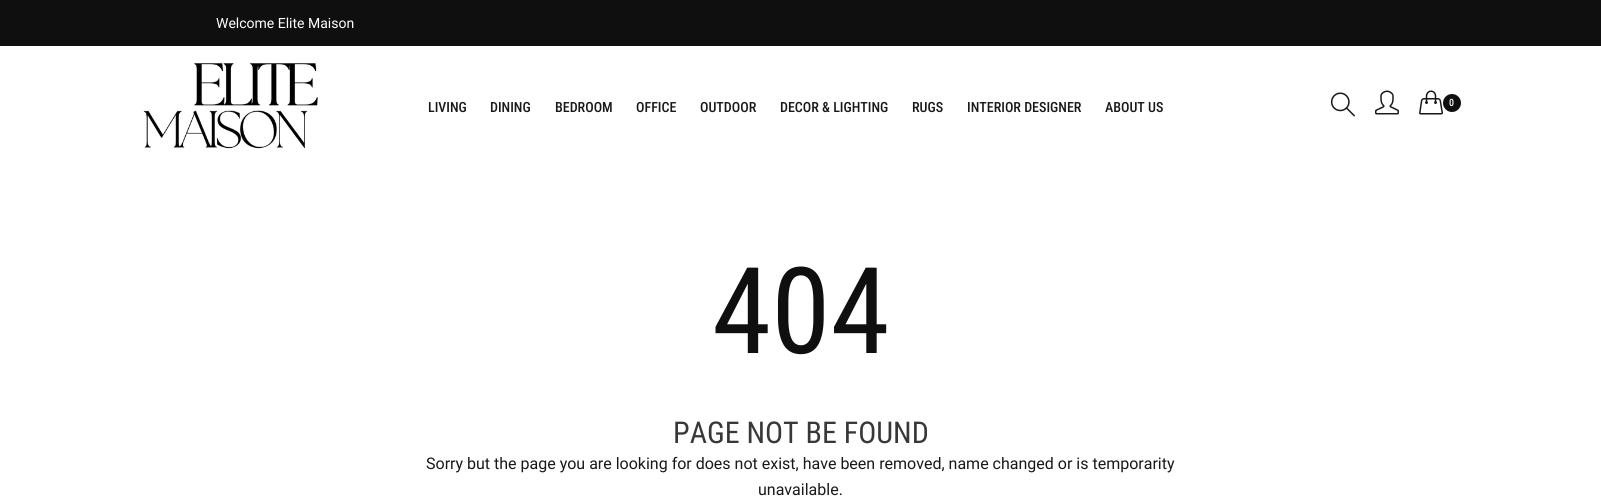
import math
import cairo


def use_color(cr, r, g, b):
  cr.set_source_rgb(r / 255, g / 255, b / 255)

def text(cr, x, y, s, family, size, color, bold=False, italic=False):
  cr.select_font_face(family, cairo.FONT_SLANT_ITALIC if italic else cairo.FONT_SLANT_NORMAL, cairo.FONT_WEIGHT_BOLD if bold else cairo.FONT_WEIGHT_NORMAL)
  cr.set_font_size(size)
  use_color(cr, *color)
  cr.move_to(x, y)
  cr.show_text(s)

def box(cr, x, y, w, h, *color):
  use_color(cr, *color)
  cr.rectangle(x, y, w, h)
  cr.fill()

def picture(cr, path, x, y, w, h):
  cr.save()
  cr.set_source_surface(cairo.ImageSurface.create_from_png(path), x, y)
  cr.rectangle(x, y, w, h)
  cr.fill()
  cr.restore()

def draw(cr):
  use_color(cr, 255, 255, 255)
  cr.paint()
  box(cr, 0, 0, 1601, 46, 15, 15, 15)
  picture(cr, "img_01.png", 143, 63, 175, 86)
  picture(cr, "img_02.png", 1330, 92, 25, 25)
  picture(cr, "img_03.png", 1375, 90, 24, 25)
  picture(cr, "img_04.png", 1419, 90, 24, 25)
  cr.arc(1452, 103, 9, 0, 2 * math.pi)
  cr.fill()
  text(cr, 216, 28, "Welcome Elite Maison", "Roboto", 14, (255, 255, 255))
  text(cr, 428, 112, "LIVING", "Roboto Condensed Medium", 14, (25, 25, 25))
  text(cr, 490, 112, "DINING", "Roboto Condensed Medium", 14, (25, 25, 25))
  text(cr, 555, 112, "BEDROOM", "Roboto Condensed Medium", 14, (25, 25, 25))
  text(cr, 636, 112, "OFFICE", "Roboto Condensed Medium", 14, (25, 25, 25))
  text(cr, 700, 112, "OUTDOOR", "Roboto Condensed Medium", 14, (25, 25, 25))
  text(cr, 780, 112, "DECOR & LIGHTING", "Roboto Condensed Medium", 14, (25, 25, 25))
  text(cr, 912, 112, "RUGS", "Roboto Condensed Medium", 14, (25, 25, 25))
  text(cr, 967, 112, "INTERIOR DESIGNER", "Roboto Condensed Medium", 14, (25, 25, 25))
  text(cr, 1105, 112, "ABOUT US", "Roboto Condensed Medium", 14, (25, 25, 25))
  text(cr, 1449, 106, "0", "Roboto Condensed Medium", 10, (255, 255, 255))
  text(cr, 712, 353, "404", "Roboto Condensed", 120, (15, 15, 15))
  text(cr, 673, 443, "PAGE NOT BE FOUND", "Roboto Condensed", 30, (56, 56, 56))
  text(cr, 426, 469, "Sorry but the page you are looking for does not exist, have been removed, name changed or is temporarity", "Roboto", 16, (25, 25, 25))
  text(cr, 758, 495, "unavailable.", "Roboto", 16, (25, 25, 25))


surface = cairo.ImageSurface(cairo.FORMAT_RGB24, 1601, 504)
cr = cairo.Context(surface)
options = cairo.FontOptions()
options.set_hint_metrics(cairo.HINT_METRICS_OFF)
options.set_hint_style(cairo.HINT_STYLE_NONE)
cr.set_font_options(options)
cr.set_miter_limit(4)
draw(cr)
surface.write_to_png("out.png")
